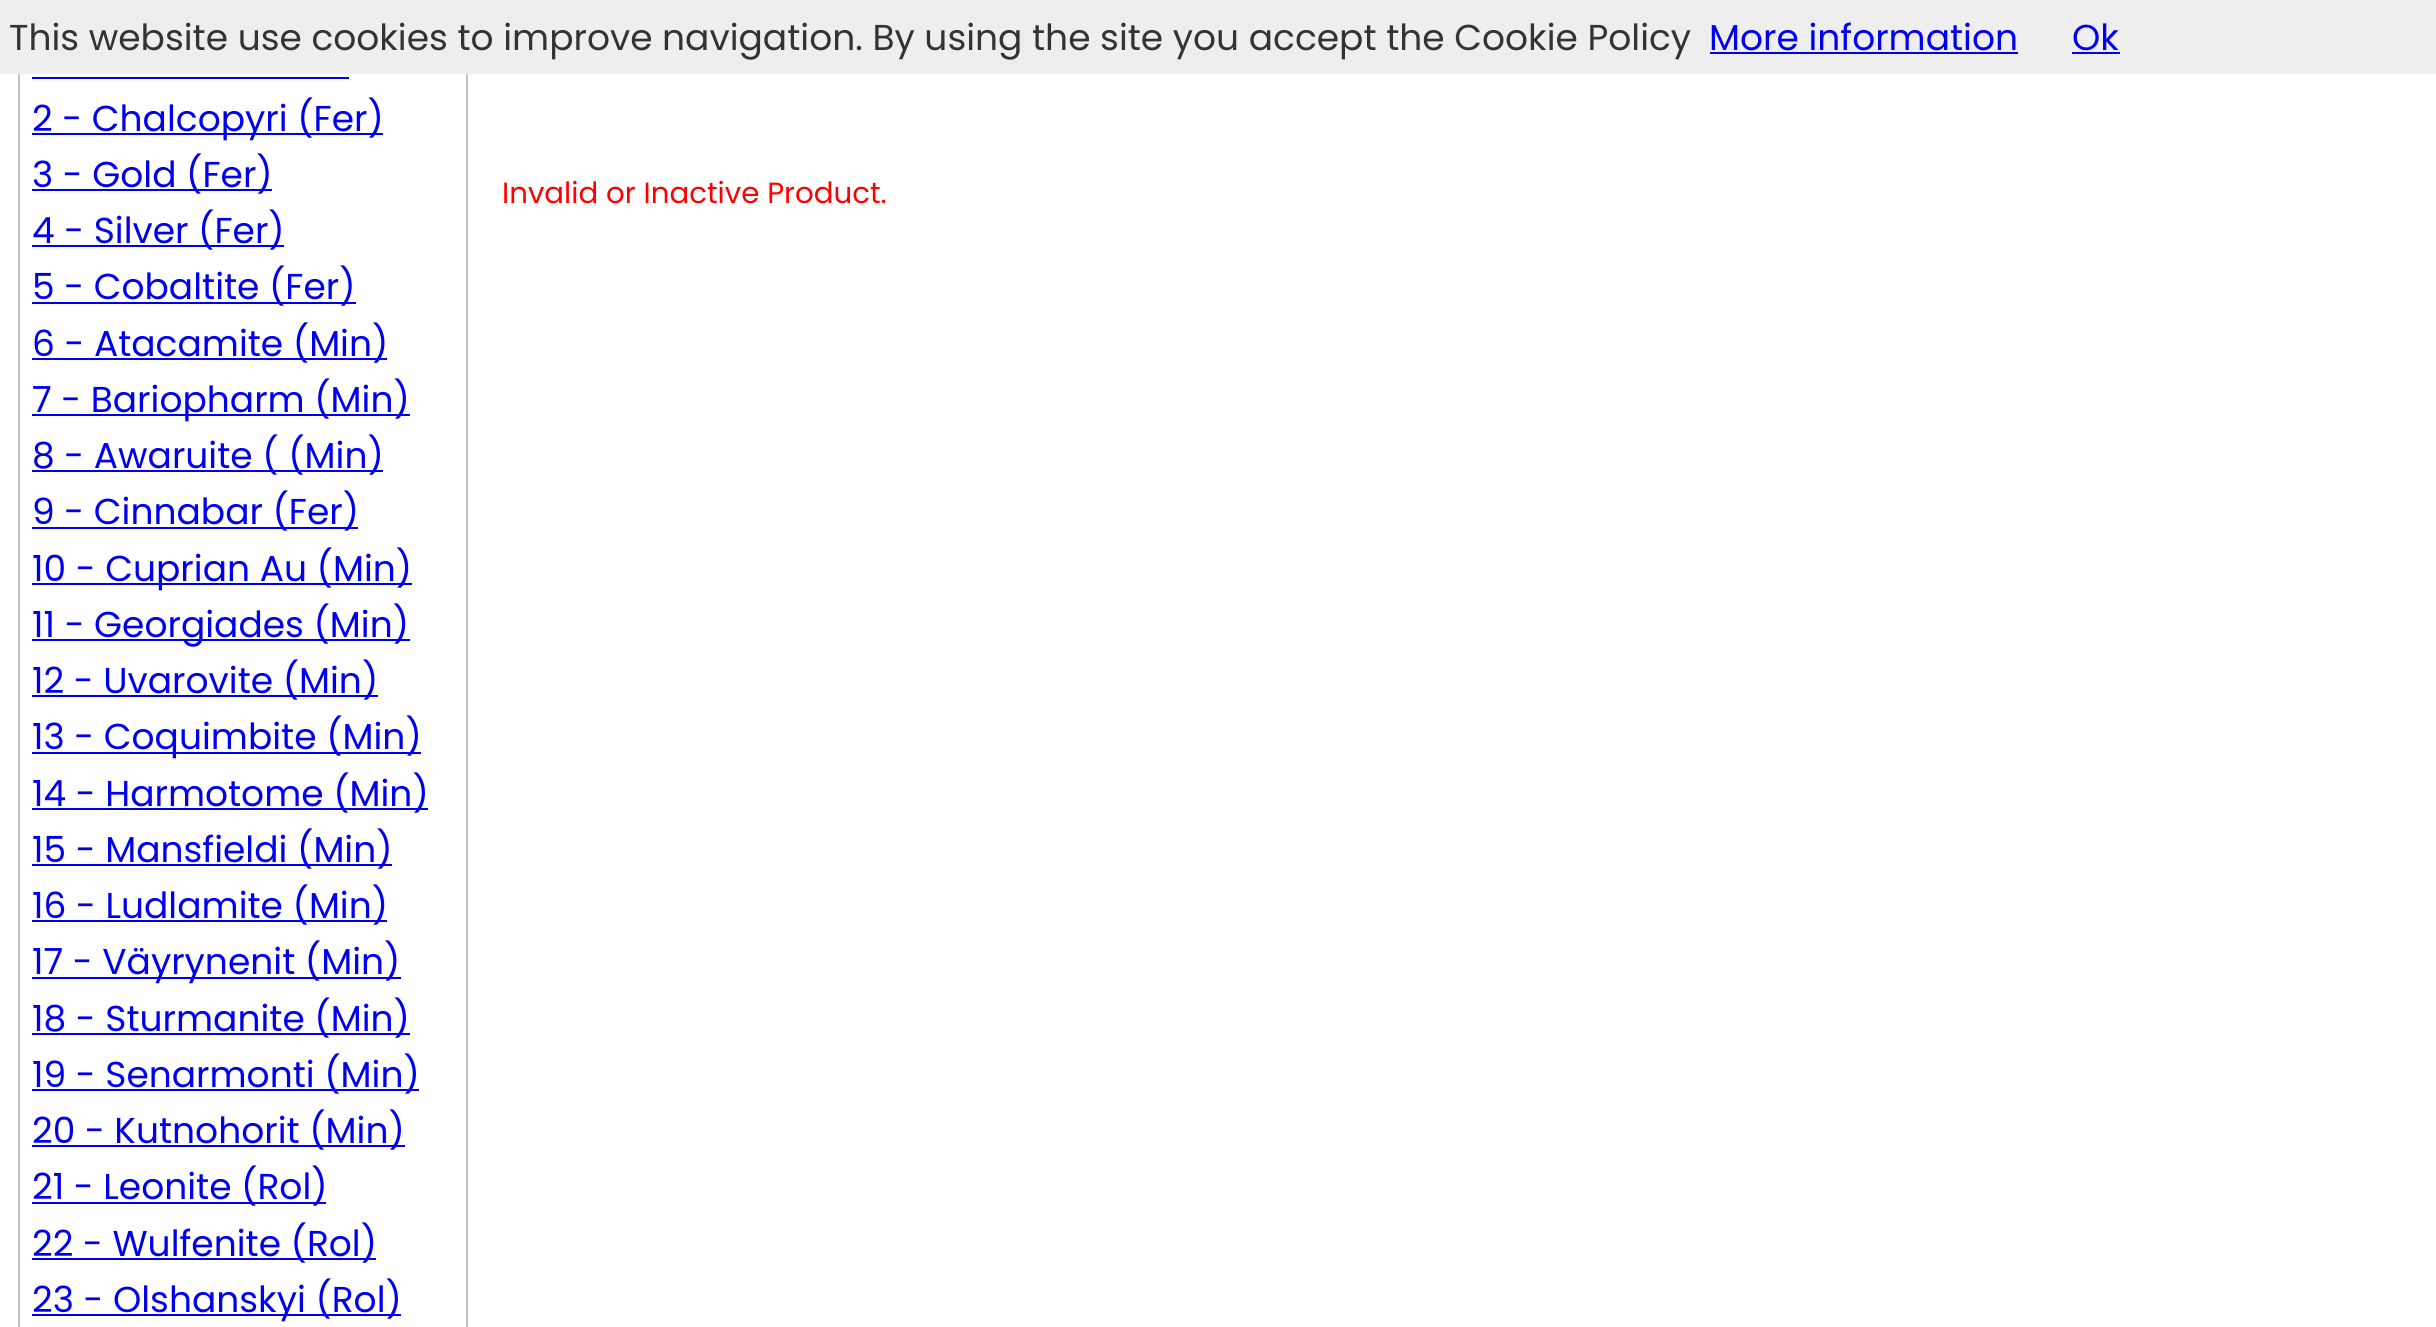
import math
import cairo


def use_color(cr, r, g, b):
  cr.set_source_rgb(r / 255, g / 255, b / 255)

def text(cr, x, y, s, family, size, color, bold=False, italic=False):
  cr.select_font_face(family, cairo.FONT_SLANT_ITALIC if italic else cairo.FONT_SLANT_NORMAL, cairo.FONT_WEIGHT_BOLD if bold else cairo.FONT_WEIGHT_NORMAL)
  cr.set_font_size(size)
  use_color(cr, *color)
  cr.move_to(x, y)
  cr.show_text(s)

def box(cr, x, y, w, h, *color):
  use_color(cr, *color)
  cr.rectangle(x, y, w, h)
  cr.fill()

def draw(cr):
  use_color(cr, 255, 255, 255)
  cr.paint()
  cr.rectangle(19, -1, 448, 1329)
  use_color(cr, 187, 195, 211)
  cr.stroke()
  box(cr, 0, 0, 2436, 74, 238, 238, 238)
  box(cr, 1710, 52, 308, 2, 0, 0, 238)
  box(cr, 2072, 52, 48, 2, 0, 0, 238)
  box(cr, 32, 77, 317, 2, 0, 0, 238)
  box(cr, 32, 133, 351, 2, 0, 0, 238)
  box(cr, 32, 189, 240, 2, 0, 0, 238)
  box(cr, 32, 245, 252, 2, 0, 0, 238)
  box(cr, 32, 302, 324, 2, 0, 0, 238)
  box(cr, 32, 358, 355, 2, 0, 0, 238)
  box(cr, 32, 414, 378, 2, 0, 0, 238)
  box(cr, 32, 470, 351, 2, 0, 0, 238)
  box(cr, 32, 527, 326, 2, 0, 0, 238)
  box(cr, 32, 583, 380, 2, 0, 0, 238)
  box(cr, 32, 639, 378, 2, 0, 0, 238)
  box(cr, 32, 695, 346, 2, 0, 0, 238)
  box(cr, 32, 752, 389, 2, 0, 0, 238)
  box(cr, 32, 808, 396, 2, 0, 0, 238)
  box(cr, 32, 864, 360, 2, 0, 0, 238)
  box(cr, 32, 920, 355, 2, 0, 0, 238)
  box(cr, 32, 977, 369, 2, 0, 0, 238)
  box(cr, 32, 1033, 378, 2, 0, 0, 238)
  box(cr, 32, 1089, 387, 2, 0, 0, 238)
  box(cr, 32, 1145, 373, 2, 0, 0, 238)
  box(cr, 32, 1202, 294, 2, 0, 0, 238)
  box(cr, 32, 1258, 344, 2, 0, 0, 238)
  box(cr, 32, 1314, 369, 2, 0, 0, 238)
  text(cr, 9, 50, "This website use cookies to improve navigation. By using the site you accept the Cookie Policy", "Poppins", 36, (51, 51, 51))
  text(cr, 1709, 50, "More information", "Poppins", 36, (0, 0, 238))
  text(cr, 2072, 50, "Ok", "Poppins", 36, (0, 0, 238))
  text(cr, 32, 131, "2 - Chalcopyri (Fer)", "Poppins", 36, (0, 0, 238))
  text(cr, 32, 187, "3 - Gold (Fer)", "Poppins", 36, (0, 0, 238))
  text(cr, 32, 243, "4 - Silver (Fer)", "Poppins", 36, (0, 0, 238))
  text(cr, 32, 299, "5 - Cobaltite (Fer)", "Poppins", 36, (0, 0, 238))
  text(cr, 32, 356, "6 - Atacamite (Min)", "Poppins", 36, (0, 0, 238))
  text(cr, 32, 412, "7 - Bariopharm (Min)", "Poppins", 36, (0, 0, 238))
  text(cr, 32, 468, "8 - Awaruite ( (Min)", "Poppins", 36, (0, 0, 238))
  text(cr, 32, 524, "9 - Cinnabar (Fer)", "Poppins", 36, (0, 0, 238))
  text(cr, 32, 581, "10 - Cuprian Au (Min)", "Poppins", 36, (0, 0, 238))
  text(cr, 32, 637, "11 - Georgiades (Min)", "Poppins", 36, (0, 0, 238))
  text(cr, 32, 693, "12 - Uvarovite (Min)", "Poppins", 36, (0, 0, 238))
  text(cr, 32, 749, "13 - Coquimbite (Min)", "Poppins", 36, (0, 0, 238))
  text(cr, 32, 806, "14 - Harmotome (Min)", "Poppins", 36, (0, 0, 238))
  text(cr, 32, 862, "15 - Mansfieldi (Min)", "Poppins", 36, (0, 0, 238))
  text(cr, 32, 918, "16 - Ludlamite (Min)", "Poppins", 36, (0, 0, 238))
  text(cr, 32, 974, "17 - Väyrynenit (Min)", "Poppins", 36, (0, 0, 238))
  text(cr, 32, 1031, "18 - Sturmanite (Min)", "Poppins", 36, (0, 0, 238))
  text(cr, 32, 1087, "19 - Senarmonti (Min)", "Poppins", 36, (0, 0, 238))
  text(cr, 32, 1143, "20 - Kutnohorit (Min)", "Poppins", 36, (0, 0, 238))
  text(cr, 32, 1199, "21 - Leonite (Rol)", "Poppins", 36, (0, 0, 238))
  text(cr, 32, 1256, "22 - Wulfenite (Rol)", "Poppins", 36, (0, 0, 238))
  text(cr, 32, 1312, "23 - Olshanskyi (Rol)", "Poppins", 36, (0, 0, 238))
  text(cr, 502, 203, "Invalid or Inactive Product.", "Poppins", 29.25, (255, 0, 0))


surface = cairo.ImageSurface(cairo.FORMAT_RGB24, 2436, 1327)
cr = cairo.Context(surface)
options = cairo.FontOptions()
options.set_hint_metrics(cairo.HINT_METRICS_OFF)
options.set_hint_style(cairo.HINT_STYLE_NONE)
cr.set_font_options(options)
cr.set_miter_limit(4)
draw(cr)
surface.write_to_png("out.png")
